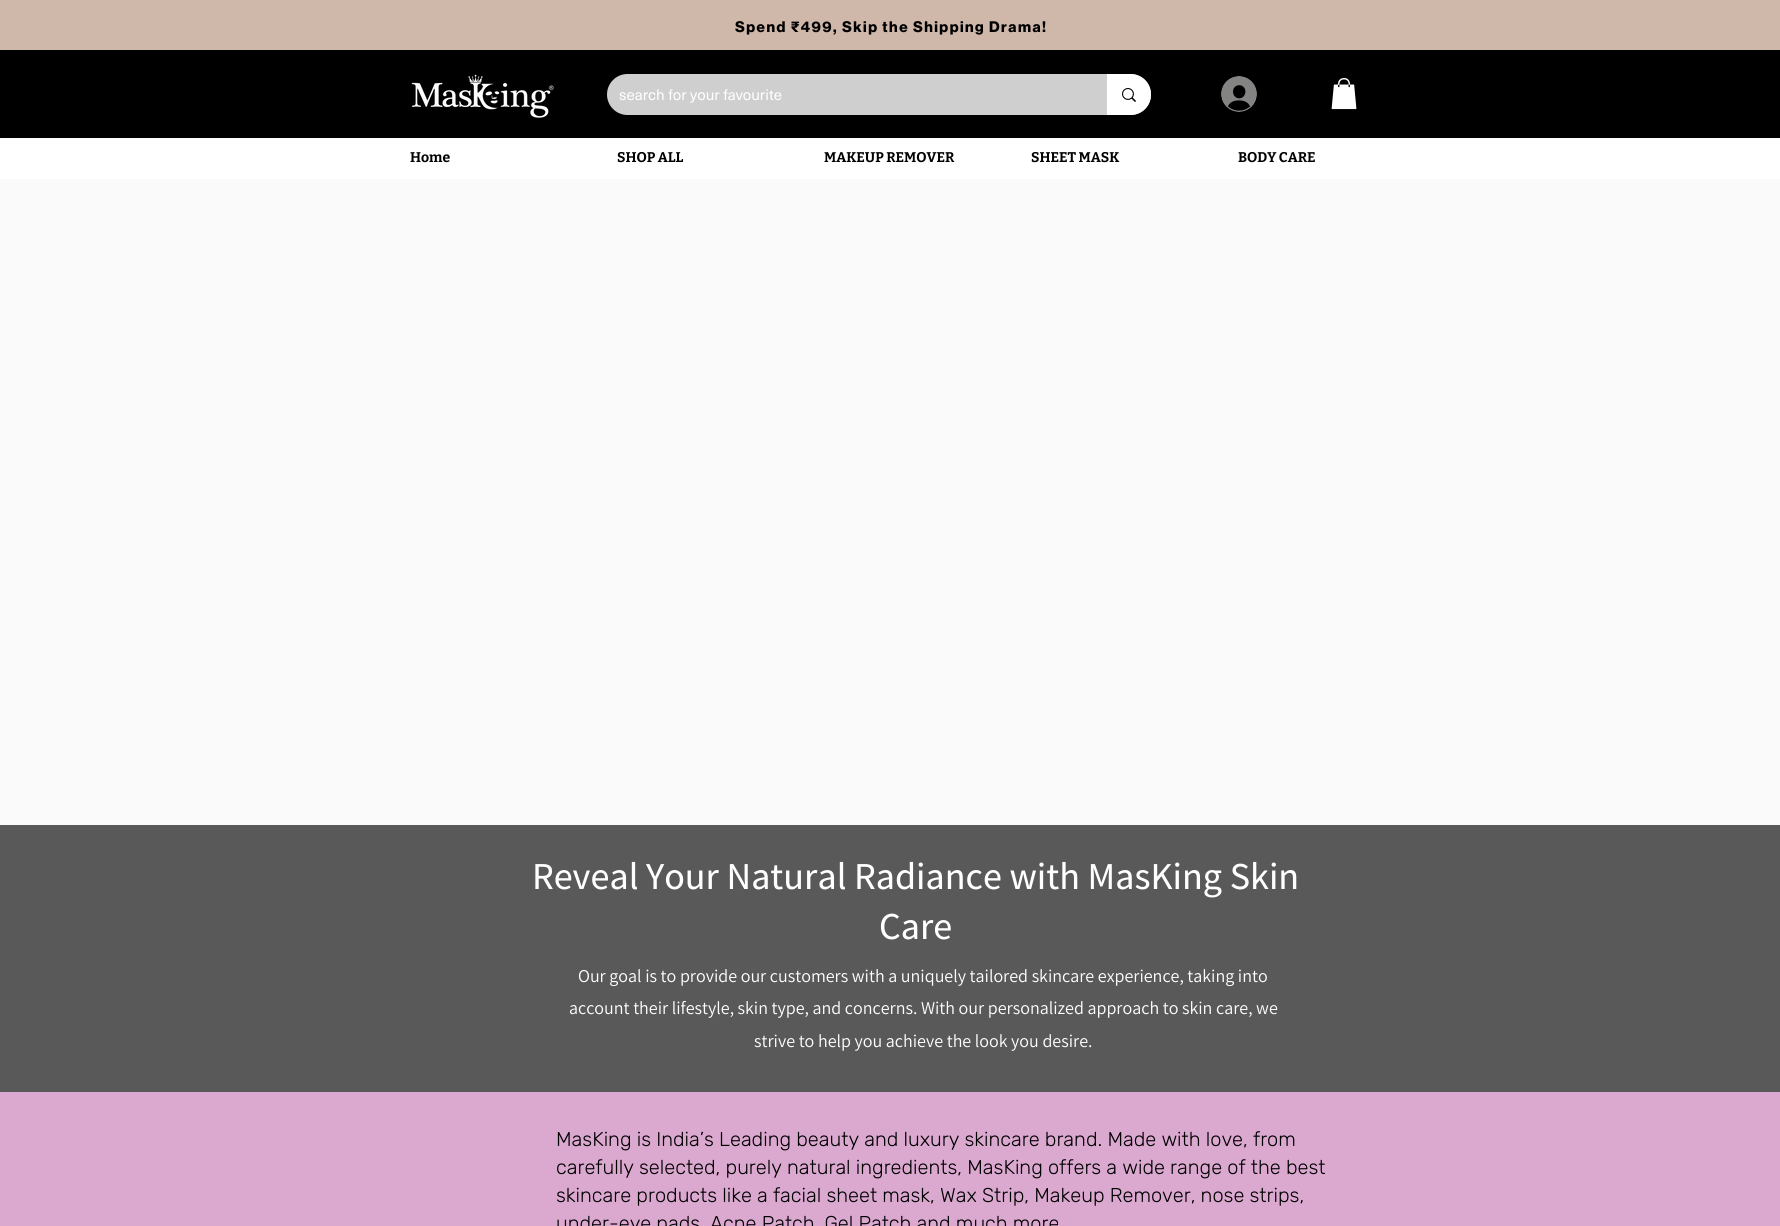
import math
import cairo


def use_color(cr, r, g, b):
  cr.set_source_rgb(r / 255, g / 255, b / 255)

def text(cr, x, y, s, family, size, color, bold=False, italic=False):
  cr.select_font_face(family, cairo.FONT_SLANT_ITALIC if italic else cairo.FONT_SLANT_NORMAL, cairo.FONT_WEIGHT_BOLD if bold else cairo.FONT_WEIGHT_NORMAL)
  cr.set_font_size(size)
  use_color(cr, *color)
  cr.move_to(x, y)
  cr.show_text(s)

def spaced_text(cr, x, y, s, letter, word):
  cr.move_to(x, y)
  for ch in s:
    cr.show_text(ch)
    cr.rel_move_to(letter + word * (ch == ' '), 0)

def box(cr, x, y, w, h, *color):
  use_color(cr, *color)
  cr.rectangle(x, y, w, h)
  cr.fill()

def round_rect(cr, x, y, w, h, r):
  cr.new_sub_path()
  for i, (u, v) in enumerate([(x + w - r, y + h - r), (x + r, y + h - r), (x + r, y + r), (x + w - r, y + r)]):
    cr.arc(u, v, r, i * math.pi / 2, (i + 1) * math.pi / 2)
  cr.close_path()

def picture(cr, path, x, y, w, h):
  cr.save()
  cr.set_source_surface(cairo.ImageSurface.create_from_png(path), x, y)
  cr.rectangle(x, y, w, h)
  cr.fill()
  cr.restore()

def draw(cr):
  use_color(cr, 250, 250, 250)
  cr.paint()
  box(cr, 0, 0, 1780, 50, 207, 184, 170)
  box(cr, 0, 50, 1780, 88, 0, 0, 0)
  picture(cr, "img_01.png", 411, 74, 143, 44)
  use_color(cr, 207, 207, 207)
  round_rect(cr, 607, 74, 544, 41, 20.5)
  cr.fill()
  use_color(cr, 255, 255, 255)
  cr.new_path()
  cr.move_to(1107, 74)
  cr.line_to(1130.5, 74)
  cr.curve_to(1142, 74, 1151, 83, 1151, 94.5)
  cr.curve_to(1151, 106, 1142, 115, 1130.5, 115)
  cr.line_to(1107, 115)
  cr.close_path()
  cr.fill()
  picture(cr, "img_02.png", 1122, 88, 14, 14)
  picture(cr, "img_03.png", 1221, 76, 36, 36)
  picture(cr, "img_04.png", 1331, 78, 26, 32)
  box(cr, 0, 138, 1780, 41, 255, 255, 255)
  box(cr, 0, 825, 1780, 267, 89, 89, 89)
  box(cr, 0, 1092, 1780, 134, 219, 168, 208)
  cr.select_font_face("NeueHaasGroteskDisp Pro", cairo.FONT_SLANT_NORMAL, cairo.FONT_WEIGHT_BOLD)
  cr.set_font_size(15)
  use_color(cr, 0, 0, 0)
  spaced_text(cr, 735, 32, "Spend ₹499, Skip the Shipping Drama!", 1.5, 0)
  text(cr, 619, 100, "search for your favourite", "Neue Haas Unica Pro", 15, (255, 255, 255))
  text(cr, 410, 162, "Home", "Bitter", 14, (0, 0, 0), bold=True)
  text(cr, 617, 162, "SHOP ALL", "Bitter", 14, (0, 0, 0), bold=True)
  text(cr, 824, 162, "MAKEUP REMOVER", "Bitter", 14, (0, 0, 0), bold=True)
  text(cr, 1031, 162, "SHEET MASK", "Bitter", 14, (0, 0, 0), bold=True)
  text(cr, 1238, 162, "BODY CARE", "Bitter", 14, (0, 0, 0), bold=True)
  text(cr, 532, 889, "Reveal Your Natural Radiance with MasKing Skin", "Assistant Medium", 38, (255, 255, 255))
  text(cr, 879, 939, "Care", "Assistant Medium", 38, (255, 255, 255))
  text(cr, 578, 982, "Our goal is to provide our customers with a uniquely tailored skincare experience, taking into", "Assistant", 18, (255, 255, 255))
  text(cr, 569, 1014, "account their lifestyle, skin type, and concerns. With our personalized approach to skin care, we", "Assistant", 18, (255, 255, 255))
  text(cr, 754, 1047, "strive to help you achieve the look you desire.", "Assistant", 18, (255, 255, 255))
  text(cr, 556, 1146, "MasKing is India’s Leading beauty and luxury skincare brand. Made with love, from", "Rubik Light", 20, (0, 0, 0))
  text(cr, 556, 1174, "carefully selected, purely natural ingredients, MasKing offers a wide range of the best", "Rubik Light", 20, (0, 0, 0))
  text(cr, 556, 1202, "skincare products like a facial sheet mask, Wax Strip, Makeup Remover, nose strips,", "Rubik Light", 20, (0, 0, 0))
  text(cr, 556, 1230, "under-eye pads, Acne Patch, Gel Patch and much more", "Rubik Light", 20, (0, 0, 0))


surface = cairo.ImageSurface(cairo.FORMAT_RGB24, 1780, 1226)
cr = cairo.Context(surface)
options = cairo.FontOptions()
options.set_hint_metrics(cairo.HINT_METRICS_OFF)
options.set_hint_style(cairo.HINT_STYLE_NONE)
cr.set_font_options(options)
cr.set_miter_limit(4)
draw(cr)
surface.write_to_png("out.png")
